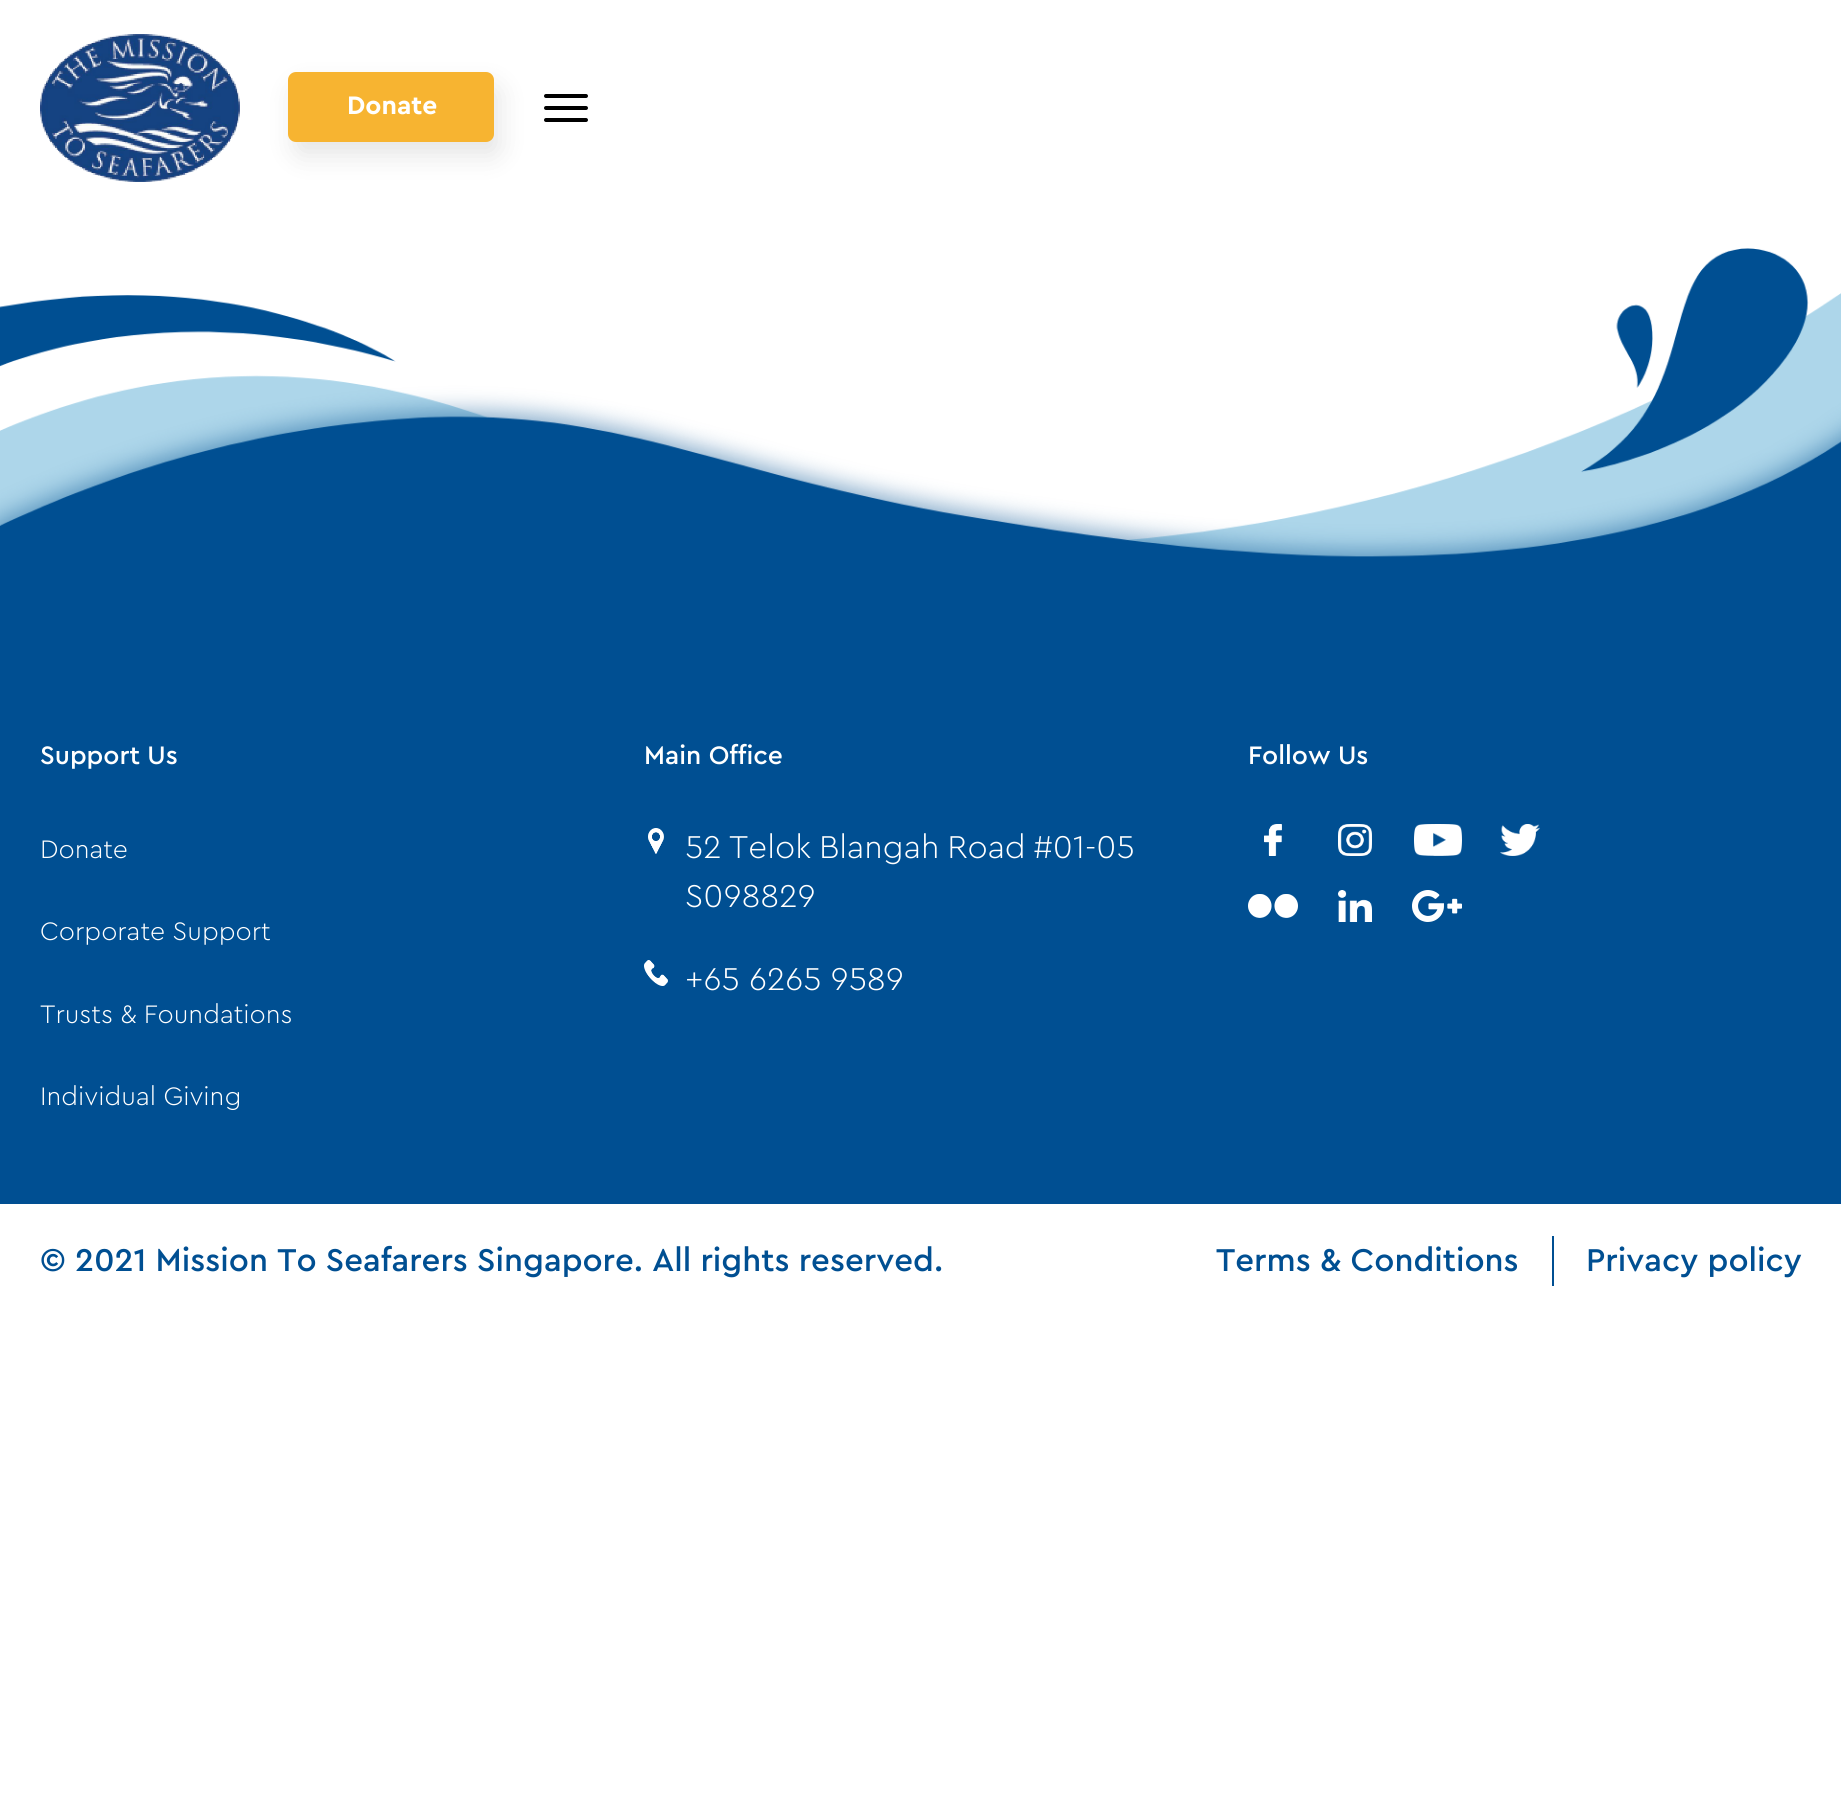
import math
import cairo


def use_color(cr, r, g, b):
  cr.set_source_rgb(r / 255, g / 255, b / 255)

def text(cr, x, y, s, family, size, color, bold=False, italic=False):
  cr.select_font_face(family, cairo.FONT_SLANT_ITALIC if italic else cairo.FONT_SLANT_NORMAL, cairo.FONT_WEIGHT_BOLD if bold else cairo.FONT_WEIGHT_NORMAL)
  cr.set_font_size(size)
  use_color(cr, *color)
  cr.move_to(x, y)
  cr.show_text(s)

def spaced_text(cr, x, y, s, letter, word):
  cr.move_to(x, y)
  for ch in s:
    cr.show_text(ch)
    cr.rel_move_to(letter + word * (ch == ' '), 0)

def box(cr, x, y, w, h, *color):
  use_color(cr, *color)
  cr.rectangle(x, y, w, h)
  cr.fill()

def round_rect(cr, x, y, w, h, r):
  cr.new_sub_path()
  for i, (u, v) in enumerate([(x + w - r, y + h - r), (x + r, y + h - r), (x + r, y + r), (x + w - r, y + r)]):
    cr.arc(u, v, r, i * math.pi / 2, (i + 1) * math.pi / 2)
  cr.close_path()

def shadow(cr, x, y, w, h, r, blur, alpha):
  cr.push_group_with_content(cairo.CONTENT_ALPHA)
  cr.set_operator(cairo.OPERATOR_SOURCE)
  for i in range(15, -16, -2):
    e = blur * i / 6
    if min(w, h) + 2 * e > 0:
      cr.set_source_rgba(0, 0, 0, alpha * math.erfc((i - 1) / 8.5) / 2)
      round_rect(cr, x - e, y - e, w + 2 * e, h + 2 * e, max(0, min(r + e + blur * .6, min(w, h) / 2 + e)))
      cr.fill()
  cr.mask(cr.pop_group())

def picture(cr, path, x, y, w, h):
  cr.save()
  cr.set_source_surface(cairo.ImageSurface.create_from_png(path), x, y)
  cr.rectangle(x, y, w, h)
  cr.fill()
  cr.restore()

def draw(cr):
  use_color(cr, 255, 255, 255)
  cr.paint()
  picture(cr, "img_01.png", 40, 34, 200, 148)
  use_color(cr, 0, 0, 0)
  shadow(cr, 294, 86, 206, 70, 8, 13, 0.1)
  use_color(cr, 247, 180, 49)
  round_rect(cr, 288, 72, 206, 70, 8)
  cr.fill()
  use_color(cr, 0, 0, 0)
  round_rect(cr, 544, 94, 44, 4, 2)
  cr.fill()
  round_rect(cr, 544, 106, 44, 4, 2)
  cr.fill()
  round_rect(cr, 544, 118, 44, 4, 2)
  cr.fill()
  picture(cr, "img_02.png", 0, 248, 1841, 312)
  box(cr, 0, 560, 1841, 644, 0, 79, 146)
  picture(cr, "img_03.png", 648, 828, 16, 26)
  picture(cr, "img_04.png", 644, 960, 24, 26)
  picture(cr, "img_05.png", 1264, 824, 18, 32)
  picture(cr, "img_06.png", 1338, 824, 34, 32)
  picture(cr, "img_07.png", 1414, 824, 48, 32)
  picture(cr, "img_08.png", 1500, 824, 40, 32)
  picture(cr, "img_09.png", 1248, 894, 50, 24)
  picture(cr, "img_10.png", 1338, 890, 34, 32)
  picture(cr, "img_11.png", 1412, 890, 50, 32)
  box(cr, 1552, 1236, 2, 50, 0, 79, 146)
  text(cr, 347, 114, "Donate", "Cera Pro", 26.5, (255, 255, 255), bold=True)
  text(cr, 40, 764, "Support Us", "Cera Pro Medium", 26.5, (255, 255, 255))
  text(cr, 40, 858, "Donate", "Cera Pro Light", 26.5, (255, 255, 255))
  text(cr, 40, 940, "Corporate Support", "Cera Pro Light", 26.5, (255, 255, 255))
  text(cr, 40, 1023, "Trusts & Foundations", "Cera Pro Light", 26.5, (255, 255, 255))
  text(cr, 40, 1105, "Individual Giving", "Cera Pro Light", 26.5, (255, 255, 255))
  text(cr, 644, 764, "Main Office", "Cera Pro Medium", 26.5, (255, 255, 255))
  cr.select_font_face("Cera Pro Light")
  cr.set_font_size(33.05)
  spaced_text(cr, 685, 858, "52 Telok Blangah Road #01-05", 0, -1.5)
  text(cr, 685, 907, "S098829", "Cera Pro Light", 33.05, (255, 255, 255))
  text(cr, 685, 990, "+65 6265 9589", "Cera Pro Light", 33.05, (255, 255, 255))
  text(cr, 1248, 764, "Follow Us", "Cera Pro Medium", 26.5, (255, 255, 255))
  text(cr, 40, 1271, "© 2021 Mission To Seafarers Singapore. All rights reserved.", "Cera Pro Medium", 33.05, (0, 79, 146))
  text(cr, 1216, 1271, "Terms & Conditions", "Cera Pro Medium", 33.05, (0, 79, 146))
  text(cr, 1586, 1271, "Privacy policy", "Cera Pro Medium", 33.05, (0, 79, 146))


surface = cairo.ImageSurface(cairo.FORMAT_RGB24, 1841, 1818)
cr = cairo.Context(surface)
options = cairo.FontOptions()
options.set_hint_metrics(cairo.HINT_METRICS_OFF)
options.set_hint_style(cairo.HINT_STYLE_NONE)
cr.set_font_options(options)
cr.set_miter_limit(4)
draw(cr)
surface.write_to_png("out.png")
